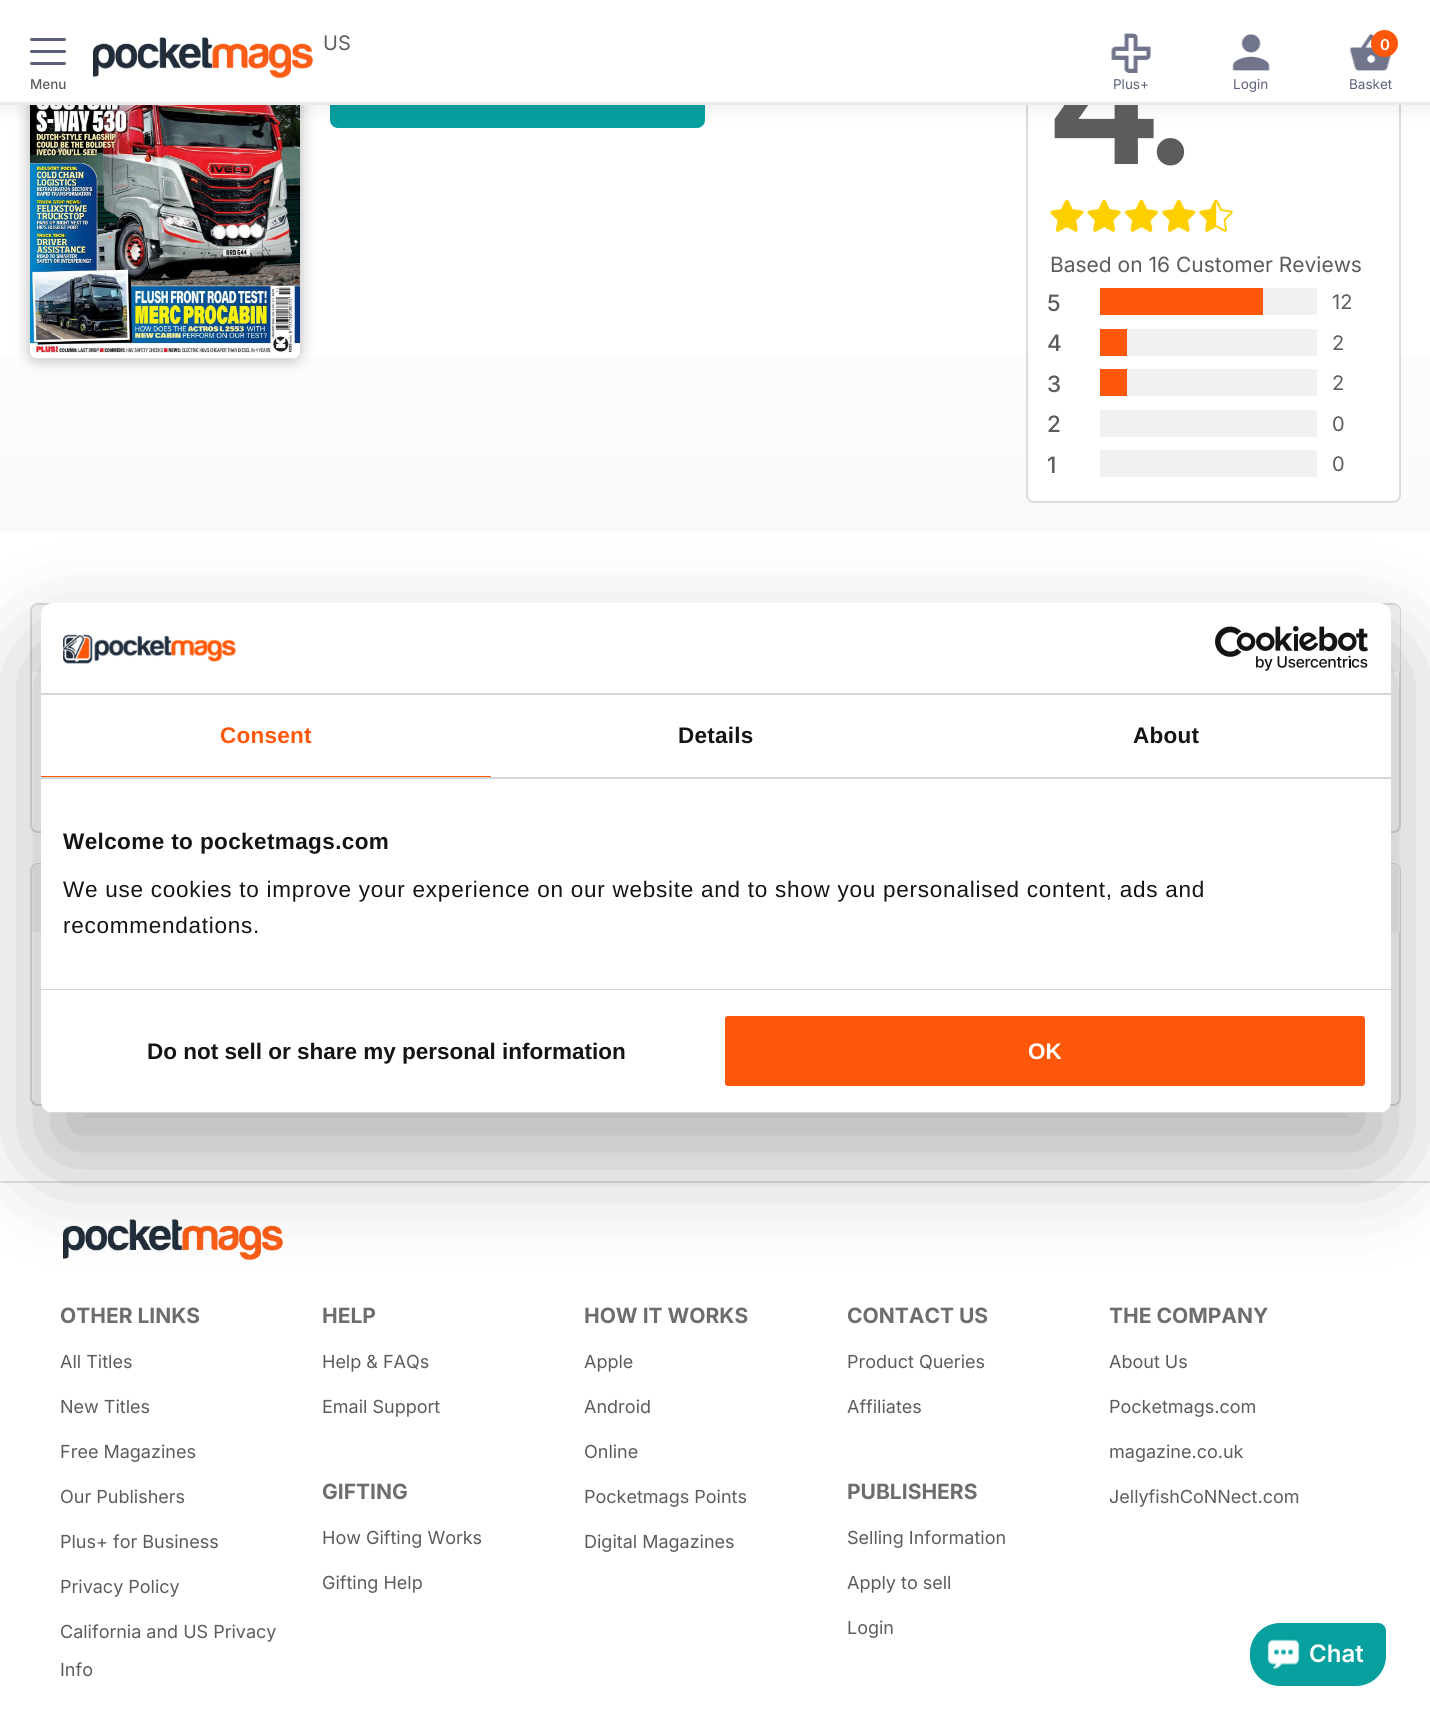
import math
import cairo


def use_color(cr, r, g, b):
  cr.set_source_rgb(r / 255, g / 255, b / 255)

def text(cr, x, y, s, family, size, color, bold=False, italic=False):
  cr.select_font_face(family, cairo.FONT_SLANT_ITALIC if italic else cairo.FONT_SLANT_NORMAL, cairo.FONT_WEIGHT_BOLD if bold else cairo.FONT_WEIGHT_NORMAL)
  cr.set_font_size(size)
  use_color(cr, *color)
  cr.move_to(x, y)
  cr.show_text(s)

def spaced_text(cr, x, y, s, letter, word):
  cr.move_to(x, y)
  for ch in s:
    cr.show_text(ch)
    cr.rel_move_to(letter + word * (ch == ' '), 0)

def box(cr, x, y, w, h, *color):
  use_color(cr, *color)
  cr.rectangle(x, y, w, h)
  cr.fill()

def round_rect(cr, x, y, w, h, r):
  cr.new_sub_path()
  for i, (u, v) in enumerate([(x + w - r, y + h - r), (x + r, y + h - r), (x + r, y + r), (x + w - r, y + r)]):
    cr.arc(u, v, r, i * math.pi / 2, (i + 1) * math.pi / 2)
  cr.close_path()

def shadow(cr, x, y, w, h, r, blur, alpha):
  cr.push_group_with_content(cairo.CONTENT_ALPHA)
  cr.set_operator(cairo.OPERATOR_SOURCE)
  for i in range(15, -16, -2):
    e = blur * i / 6
    if min(w, h) + 2 * e > 0:
      cr.set_source_rgba(0, 0, 0, alpha * math.erfc((i - 1) / 8.5) / 2)
      round_rect(cr, x - e, y - e, w + 2 * e, h + 2 * e, max(0, min(r + e + blur * .6, min(w, h) / 2 + e)))
      cr.fill()
  cr.mask(cr.pop_group())

def picture(cr, path, x, y, w, h):
  cr.save()
  cr.set_source_surface(cairo.ImageSurface.create_from_png(path), x, y)
  cr.rectangle(x, y, w, h)
  cr.fill()
  cr.restore()

def draw(cr):
  use_color(cr, 255, 255, 255)
  cr.paint()
  gradient = cairo.LinearGradient(716, 533, 716, -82)
  gradient.add_color_stop_rgba(0, 0.976, 0.976, 0.976, 1)
  gradient.add_color_stop_rgba(0.49, 1, 1, 1, 1)
  gradient.add_color_stop_rgba(1, 1, 1, 1, 1)
  cr.set_source(gradient)
  cr.rectangle(0, 357, 1430, 176)
  cr.fill()
  use_color(cr, 0, 0, 0)
  shadow(cr, 30, -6, 270, 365, 8, 7.5, 0.3)
  picture(cr, "img_05.png", 30, 105, 270, 254)
  use_color(cr, 7, 159, 159)
  round_rect(cr, 330, 75, 375, 53, 8)
  cr.fill()
  use_color(cr, 255, 255, 255)
  round_rect(cr, 1027, -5, 373, 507, 7)
  cr.fill_preserve()
  use_color(cr, 219, 219, 219)
  cr.stroke()
  use_color(cr, 0, 0, 0)
  shadow(cr, -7, -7, 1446, 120, 0, 7.5, 0.05)
  picture(cr, "img_06.png", 1050, 199, 183, 33)
  box(cr, 1263, 288, 54, 27, 241, 241, 241)
  box(cr, 1100, 288, 163, 27, 255, 87, 9)
  box(cr, 1127, 329, 190, 27, 241, 241, 241)
  box(cr, 1100, 329, 27, 27, 255, 87, 9)
  box(cr, 1127, 369, 190, 27, 241, 241, 241)
  box(cr, 1100, 369, 27, 27, 255, 87, 9)
  box(cr, 1100, 410, 217, 27, 241, 241, 241)
  box(cr, 1100, 450, 217, 27, 241, 241, 241)
  round_rect(cr, 31, 604, 1369, 228, 7)
  use_color(cr, 219, 219, 219)
  cr.stroke()
  use_color(cr, 245, 245, 245)
  cr.new_path()
  cr.move_to(38, 605)
  cr.line_to(1394, 605)
  cr.curve_to(1397.5, 605, 1400, 607.5, 1400, 611)
  cr.line_to(1400, 672)
  cr.line_to(32, 672)
  cr.line_to(32, 611)
  cr.curve_to(32, 607.5, 34.5, 605, 38, 605)
  cr.close_path()
  cr.fill()
  round_rect(cr, 31, 864, 1369, 241, 7)
  use_color(cr, 219, 219, 219)
  cr.stroke()
  use_color(cr, 245, 245, 245)
  cr.new_path()
  cr.move_to(38, 864)
  cr.line_to(1394, 864)
  cr.curve_to(1397.5, 864, 1400, 866.5, 1400, 870)
  cr.line_to(1400, 932)
  cr.line_to(32, 932)
  cr.line_to(32, 870)
  cr.curve_to(32, 866.5, 34.5, 864, 38, 864)
  cr.close_path()
  cr.fill()
  box(cr, 0, 1181, 1430, 2, 225, 225, 225)
  picture(cr, "img_07.png", 63, 1219, 220, 42)
  use_color(cr, 7, 160, 158)
  cr.new_path()
  cr.move_to(1280, 1623)
  cr.line_to(1378, 1623)
  cr.curve_to(1382.5, 1623, 1386, 1626.5, 1386, 1631)
  cr.line_to(1386, 1656)
  cr.curve_to(1386, 1672.5, 1372.5, 1686, 1356, 1686)
  cr.line_to(1280, 1686)
  cr.curve_to(1263.5, 1686, 1250, 1672.5, 1250, 1656)
  cr.line_to(1250, 1653)
  cr.curve_to(1250, 1636.5, 1263.5, 1623, 1280, 1623)
  cr.close_path()
  cr.fill()
  picture(cr, "img_08.png", 1267, 1639, 33, 31)
  use_color(cr, 0, 0, 0)
  shadow(cr, 41, 651, 1350, 510, 12, 51, 0.3)
  use_color(cr, 255, 255, 255)
  round_rect(cr, 41, 603, 1350, 510, 12)
  cr.fill()
  box(cr, 41, 693, 1350, 2, 214, 214, 214)
  picture(cr, "img_09.png", 63, 634, 173, 30)
  picture(cr, "img_10.png", 1215, 626, 153, 45)
  box(cr, 41, 777, 1350, 2, 214, 214, 214)
  box(cr, 41, 776, 450, 1, 255, 87, 9)
  box(cr, 41, 989, 1350, 1, 214, 214, 214)
  cr.save()
  round_rect(cr, 41, 603, 1350, 510, 12)
  cr.clip()
  box(cr, 41, 1112, 1350, 1, 214, 214, 214)
  cr.restore()
  use_color(cr, 255, 87, 9)
  round_rect(cr, 723.5, 1014.5, 643, 73, 4.5)
  cr.fill_preserve()
  use_color(cr, 255, 255, 255)
  cr.set_line_width(3)
  cr.stroke()
  cr.select_font_face("Inter", cairo.FONT_SLANT_NORMAL, cairo.FONT_WEIGHT_BOLD)
  cr.set_font_size(165)
  use_color(cr, 92, 92, 92)
  spaced_text(cr, 1050, 164, "4.", -8, 0)
  box(cr, 0, 0, 1430, 102, 255, 255, 255)
  use_color(cr, 92, 96, 124)
  round_rect(cr, 30, 62, 36, 3, 1.5)
  cr.fill()
  round_rect(cr, 30, 50, 36, 3, 1.5)
  cr.fill()
  round_rect(cr, 30, 38, 36, 3, 1.5)
  cr.fill()
  text(cr, 30, 89, "Menu", "Inter Medium", 13.5, (92, 92, 92))
  picture(cr, "img_04.png", 1349, 34, 43, 37)
  use_color(cr, 255, 88, 10)
  cr.arc(1384.5, 43.5, 13.5, 0, 2 * math.pi)
  cr.fill()
  text(cr, 1380, 50, "0", "Inter SemiBold", 15, (255, 255, 255))
  picture(cr, "img_02.png", 1111, 33, 40, 40)
  picture(cr, "img_03.png", 1232, 34, 38, 37)
  text(cr, 1113, 89, "Plus+", "Inter", 13.5, (92, 96, 124))
  text(cr, 1233, 89, "Login", "Inter", 13.5, (92, 96, 124))
  text(cr, 323, 50, "US", "Inter", 20, (92, 92, 92))
  text(cr, 1349, 89, "Basket", "Inter", 13.5, (92, 96, 124))
  picture(cr, "img_01.png", 93, 37, 220, 42)
  box(cr, 0, 102, 1430, 3, 234, 234, 234)
  text(cr, 1050, 272, "Based on 16 Customer Reviews", "Inter", 21, (92, 92, 92))
  text(cr, 1047, 311, "5", "Inter Medium", 22.5, (92, 92, 92))
  text(cr, 1332, 309, "12", "Inter", 20, (92, 92, 92))
  text(cr, 1047, 351, "4", "Inter Medium", 22.5, (92, 92, 92))
  text(cr, 1332, 350, "2", "Inter", 20, (92, 92, 92))
  text(cr, 1047, 392, "3", "Inter Medium", 22.5, (92, 92, 92))
  text(cr, 1332, 390, "2", "Inter", 20, (92, 92, 92))
  text(cr, 1047, 432, "2", "Inter Medium", 22.5, (92, 92, 92))
  text(cr, 1332, 431, "0", "Inter", 20, (92, 92, 92))
  text(cr, 1047, 473, "1", "Inter Medium", 22.5, (92, 92, 92))
  text(cr, 1332, 471, "0", "Inter", 20, (92, 92, 92))
  text(cr, 60, 1323, "OTHER LINKS", "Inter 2", 21, (109, 109, 109), bold=True)
  text(cr, 60, 1368, "All Titles", "Inter", 18, (92, 92, 92))
  text(cr, 60, 1413, "New Titles", "Inter", 18, (92, 92, 92))
  text(cr, 60, 1458, "Free Magazines", "Inter", 18, (92, 92, 92))
  text(cr, 60, 1503, "Our Publishers", "Inter", 18, (92, 92, 92))
  text(cr, 60, 1548, "Plus+ for Business", "Inter", 18, (92, 92, 92))
  text(cr, 60, 1593, "Privacy Policy", "Inter", 18, (92, 92, 92))
  text(cr, 60, 1638, "California and US Privacy", "Inter", 18, (92, 92, 92))
  text(cr, 60, 1676, "Info", "Inter", 18, (92, 92, 92))
  text(cr, 322, 1323, "HELP", "Inter 2", 21, (109, 109, 109), bold=True)
  text(cr, 322, 1368, "Help & FAQs", "Inter", 18, (92, 92, 92))
  text(cr, 322, 1413, "Email Support", "Inter", 18, (92, 92, 92))
  text(cr, 322, 1499, "GIFTING", "Inter 2", 21, (109, 109, 109), bold=True)
  text(cr, 322, 1544, "How Gifting Works", "Inter", 18, (92, 92, 92))
  text(cr, 322, 1589, "Gifting Help", "Inter", 18, (92, 92, 92))
  text(cr, 584, 1323, "HOW IT WORKS", "Inter 2", 21, (109, 109, 109), bold=True)
  text(cr, 584, 1368, "Apple", "Inter", 18, (92, 92, 92))
  text(cr, 584, 1413, "Android", "Inter", 18, (92, 92, 92))
  text(cr, 584, 1458, "Online", "Inter", 18, (92, 92, 92))
  text(cr, 584, 1503, "Pocketmags Points", "Inter", 18, (92, 92, 92))
  text(cr, 584, 1548, "Digital Magazines", "Inter", 18, (92, 92, 92))
  text(cr, 847, 1323, "CONTACT US", "Inter 2", 21, (109, 109, 109), bold=True)
  text(cr, 847, 1368, "Product Queries", "Inter", 18, (92, 92, 92))
  text(cr, 847, 1413, "Affiliates", "Inter", 18, (92, 92, 92))
  text(cr, 847, 1499, "PUBLISHERS", "Inter 2", 21, (109, 109, 109), bold=True)
  text(cr, 847, 1544, "Selling Information", "Inter", 18, (92, 92, 92))
  text(cr, 847, 1589, "Apply to sell", "Inter", 18, (92, 92, 92))
  text(cr, 847, 1634, "Login", "Inter", 18, (92, 92, 92))
  text(cr, 1109, 1323, "THE COMPANY", "Inter 2", 21, (109, 109, 109), bold=True)
  text(cr, 1109, 1368, "About Us", "Inter", 18, (92, 92, 92))
  text(cr, 1109, 1413, "Pocketmags.com", "Inter", 18, (92, 92, 92))
  text(cr, 1109, 1458, "magazine.co.uk", "Inter", 18, (92, 92, 92))
  text(cr, 1109, 1503, "JellyfishCoNNect.com", "Inter", 18, (92, 92, 92))
  text(cr, 1309, 1662, "Chat", "Inter SemiBold", 24, (255, 255, 255))
  cr.select_font_face("Liberation Sans", cairo.FONT_SLANT_NORMAL, cairo.FONT_WEIGHT_BOLD)
  cr.set_font_size(22.5)
  use_color(cr, 255, 87, 9)
  spaced_text(cr, 220, 743, "Consent", 0.25, 0)
  use_color(cr, 20, 20, 20)
  spaced_text(cr, 678, 743, "Details", 0.25, 0)
  spaced_text(cr, 1133, 743, "About", 0.25, 0)
  spaced_text(cr, 63, 849, "Welcome to pocketmags.com", 0.4, 0)
  cr.select_font_face("Liberation Sans")
  spaced_text(cr, 63, 897, "We use cookies to improve your experience on our website and to show you personalised content, ads and", 0.75, 0)
  spaced_text(cr, 63, 933, "recommendations.", 0.75, 0)
  text(cr, 147, 1059, "Do not sell or share my personal information", "Liberation Sans", 22.5, (20, 20, 20), bold=True)
  text(cr, 1028, 1059, "OK", "Liberation Sans", 22.5, (255, 255, 255), bold=True)


surface = cairo.ImageSurface(cairo.FORMAT_RGB24, 1430, 1715)
cr = cairo.Context(surface)
options = cairo.FontOptions()
options.set_hint_metrics(cairo.HINT_METRICS_OFF)
options.set_hint_style(cairo.HINT_STYLE_NONE)
cr.set_font_options(options)
cr.set_miter_limit(4)
draw(cr)
surface.write_to_png("out.png")
